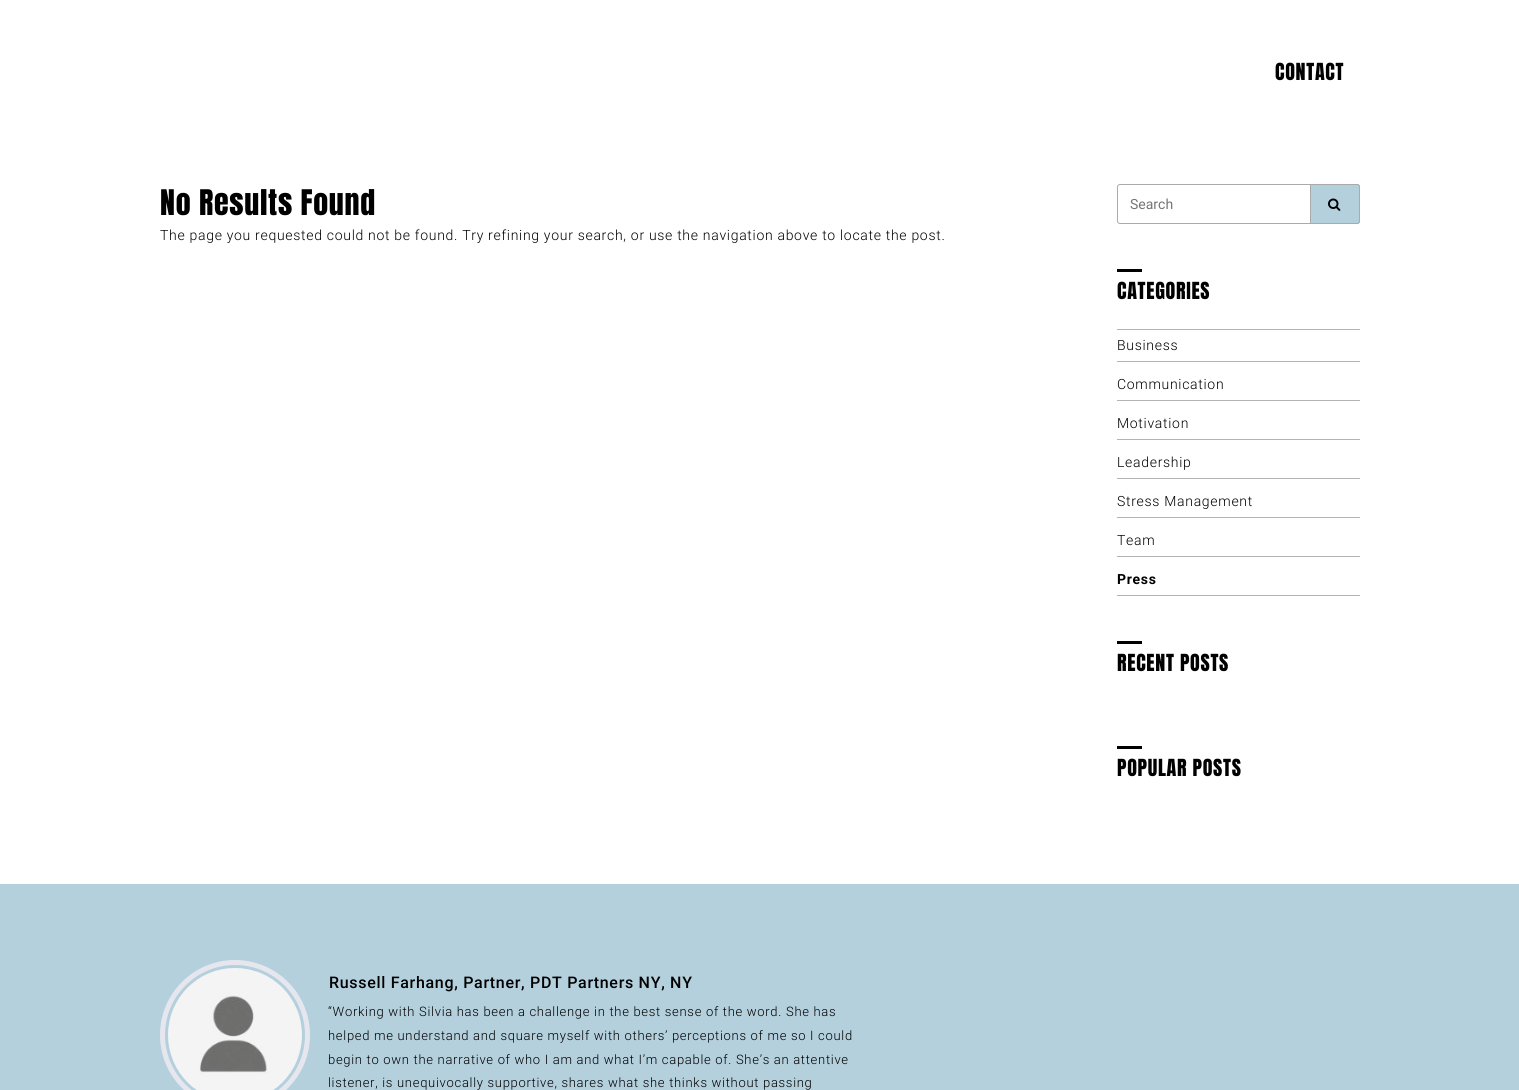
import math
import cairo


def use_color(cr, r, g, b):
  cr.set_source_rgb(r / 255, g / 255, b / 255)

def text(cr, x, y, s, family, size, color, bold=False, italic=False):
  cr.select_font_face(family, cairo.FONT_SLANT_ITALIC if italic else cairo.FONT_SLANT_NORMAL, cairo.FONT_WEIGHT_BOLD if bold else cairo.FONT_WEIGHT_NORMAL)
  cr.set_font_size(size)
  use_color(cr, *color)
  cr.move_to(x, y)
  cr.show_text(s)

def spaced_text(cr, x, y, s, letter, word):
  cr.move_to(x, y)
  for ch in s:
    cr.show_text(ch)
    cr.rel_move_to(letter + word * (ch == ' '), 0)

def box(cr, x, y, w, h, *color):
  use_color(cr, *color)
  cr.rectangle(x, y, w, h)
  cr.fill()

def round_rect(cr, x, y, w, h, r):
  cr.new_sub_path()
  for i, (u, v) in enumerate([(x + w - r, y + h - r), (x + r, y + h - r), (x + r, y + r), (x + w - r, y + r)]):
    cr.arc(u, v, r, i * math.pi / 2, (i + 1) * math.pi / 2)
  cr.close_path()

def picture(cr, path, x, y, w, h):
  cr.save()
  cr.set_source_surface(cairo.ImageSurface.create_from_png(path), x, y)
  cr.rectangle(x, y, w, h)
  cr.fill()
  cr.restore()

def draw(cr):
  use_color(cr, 255, 255, 255)
  cr.paint()
  round_rect(cr, 1117.5, 184.5, 242, 39, 2.5)
  use_color(cr, 170, 170, 170)
  cr.set_line_width(1)
  cr.stroke()
  use_color(cr, 180, 208, 221)
  cr.new_path()
  cr.move_to(1310.5, 184.5)
  cr.line_to(1357, 184.5)
  cr.curve_to(1358.5, 184.5, 1359.5, 185.5, 1359.5, 187)
  cr.line_to(1359.5, 221)
  cr.curve_to(1359.5, 222.5, 1358.5, 223.5, 1357, 223.5)
  cr.line_to(1310.5, 223.5)
  cr.close_path()
  cr.fill_preserve()
  use_color(cr, 170, 170, 170)
  cr.stroke()
  picture(cr, "img_01.png", 1328, 198, 13, 13)
  box(cr, 1117, 269, 25, 3, 0, 0, 0)
  box(cr, 1117, 329, 243, 1, 179, 179, 179)
  box(cr, 1117, 361, 243, 1, 179, 179, 179)
  box(cr, 1117, 400, 243, 1, 179, 179, 179)
  box(cr, 1117, 439, 243, 1, 179, 179, 179)
  box(cr, 1117, 478, 243, 1, 179, 179, 179)
  box(cr, 1117, 517, 243, 1, 179, 179, 179)
  box(cr, 1117, 556, 243, 1, 179, 179, 179)
  box(cr, 1117, 595, 243, 1, 179, 179, 179)
  box(cr, 1117, 641, 25, 3, 0, 0, 0)
  box(cr, 1117, 746, 25, 3, 0, 0, 0)
  box(cr, 0, 884, 1519, 206, 180, 208, 221)
  cr.arc(235, 1035, 72.5, 0, 2 * math.pi)
  use_color(cr, 230, 231, 238)
  cr.set_line_width(5)
  cr.stroke()
  picture(cr, "img_02.png", 168, 968, 134, 122)
  cr.select_font_face("Anton")
  cr.set_font_size(20)
  use_color(cr, 0, 0, 0)
  spaced_text(cr, 1275, 80, "CONTACT", 0.7, 0)
  cr.set_font_size(30)
  spaced_text(cr, 160, 215, "No Results Found", 0.7, 0)
  cr.select_font_face("Roboto Light")
  cr.set_font_size(14)
  spaced_text(cr, 160, 240, "The page you requested could not be found. Try refining your search, or use the navigation above to locate the post.", 0.7, 0)
  text(cr, 1130, 209, "Search", "Roboto", 14, (117, 117, 117))
  cr.select_font_face("Anton")
  cr.set_font_size(20)
  use_color(cr, 0, 0, 0)
  spaced_text(cr, 1117, 299, "CATEGORIES", 0.7, 0)
  cr.select_font_face("Roboto Light")
  cr.set_font_size(14)
  spaced_text(cr, 1117, 350, "Business", 0.7, 0)
  spaced_text(cr, 1117, 389, "Communication", 0.7, 0)
  spaced_text(cr, 1117, 428, "Motivation", 0.7, 0)
  spaced_text(cr, 1117, 467, "Leadership", 0.7, 0)
  spaced_text(cr, 1117, 506, "Stress Management", 0.7, 0)
  spaced_text(cr, 1117, 545, "Team", 0.7, 0)
  cr.select_font_face("Roboto", cairo.FONT_SLANT_NORMAL, cairo.FONT_WEIGHT_BOLD)
  spaced_text(cr, 1117, 584, "Press", 0.7, 0)
  cr.select_font_face("Anton")
  cr.set_font_size(20)
  spaced_text(cr, 1117, 671, "RECENT POSTS", 0.7, 0)
  spaced_text(cr, 1117, 776, "POPULAR POSTS", 0.7, 0)
  cr.select_font_face("Roboto Medium")
  cr.set_font_size(16)
  spaced_text(cr, 329, 988, "Russell Farhang, Partner, PDT Partners NY, NY", 0.7, 0)
  cr.select_font_face("Roboto Light")
  cr.set_font_size(13)
  spaced_text(cr, 328, 1016, "“Working with Silvia has been a challenge in the best sense of the word. She has", 0.7, 0)
  spaced_text(cr, 328, 1040, "helped me understand and square myself with others’ perceptions of me so I could", 0.7, 0)
  spaced_text(cr, 328, 1064, "begin to own the narrative of who I am and what I’m capable of. She’s an attentive", 0.7, 0)
  spaced_text(cr, 328, 1087, "listener, is unequivocally supportive, shares what she thinks without passing", 0.7, 0)


surface = cairo.ImageSurface(cairo.FORMAT_RGB24, 1519, 1090)
cr = cairo.Context(surface)
options = cairo.FontOptions()
options.set_hint_metrics(cairo.HINT_METRICS_OFF)
options.set_hint_style(cairo.HINT_STYLE_NONE)
cr.set_font_options(options)
cr.set_miter_limit(4)
draw(cr)
surface.write_to_png("out.png")
